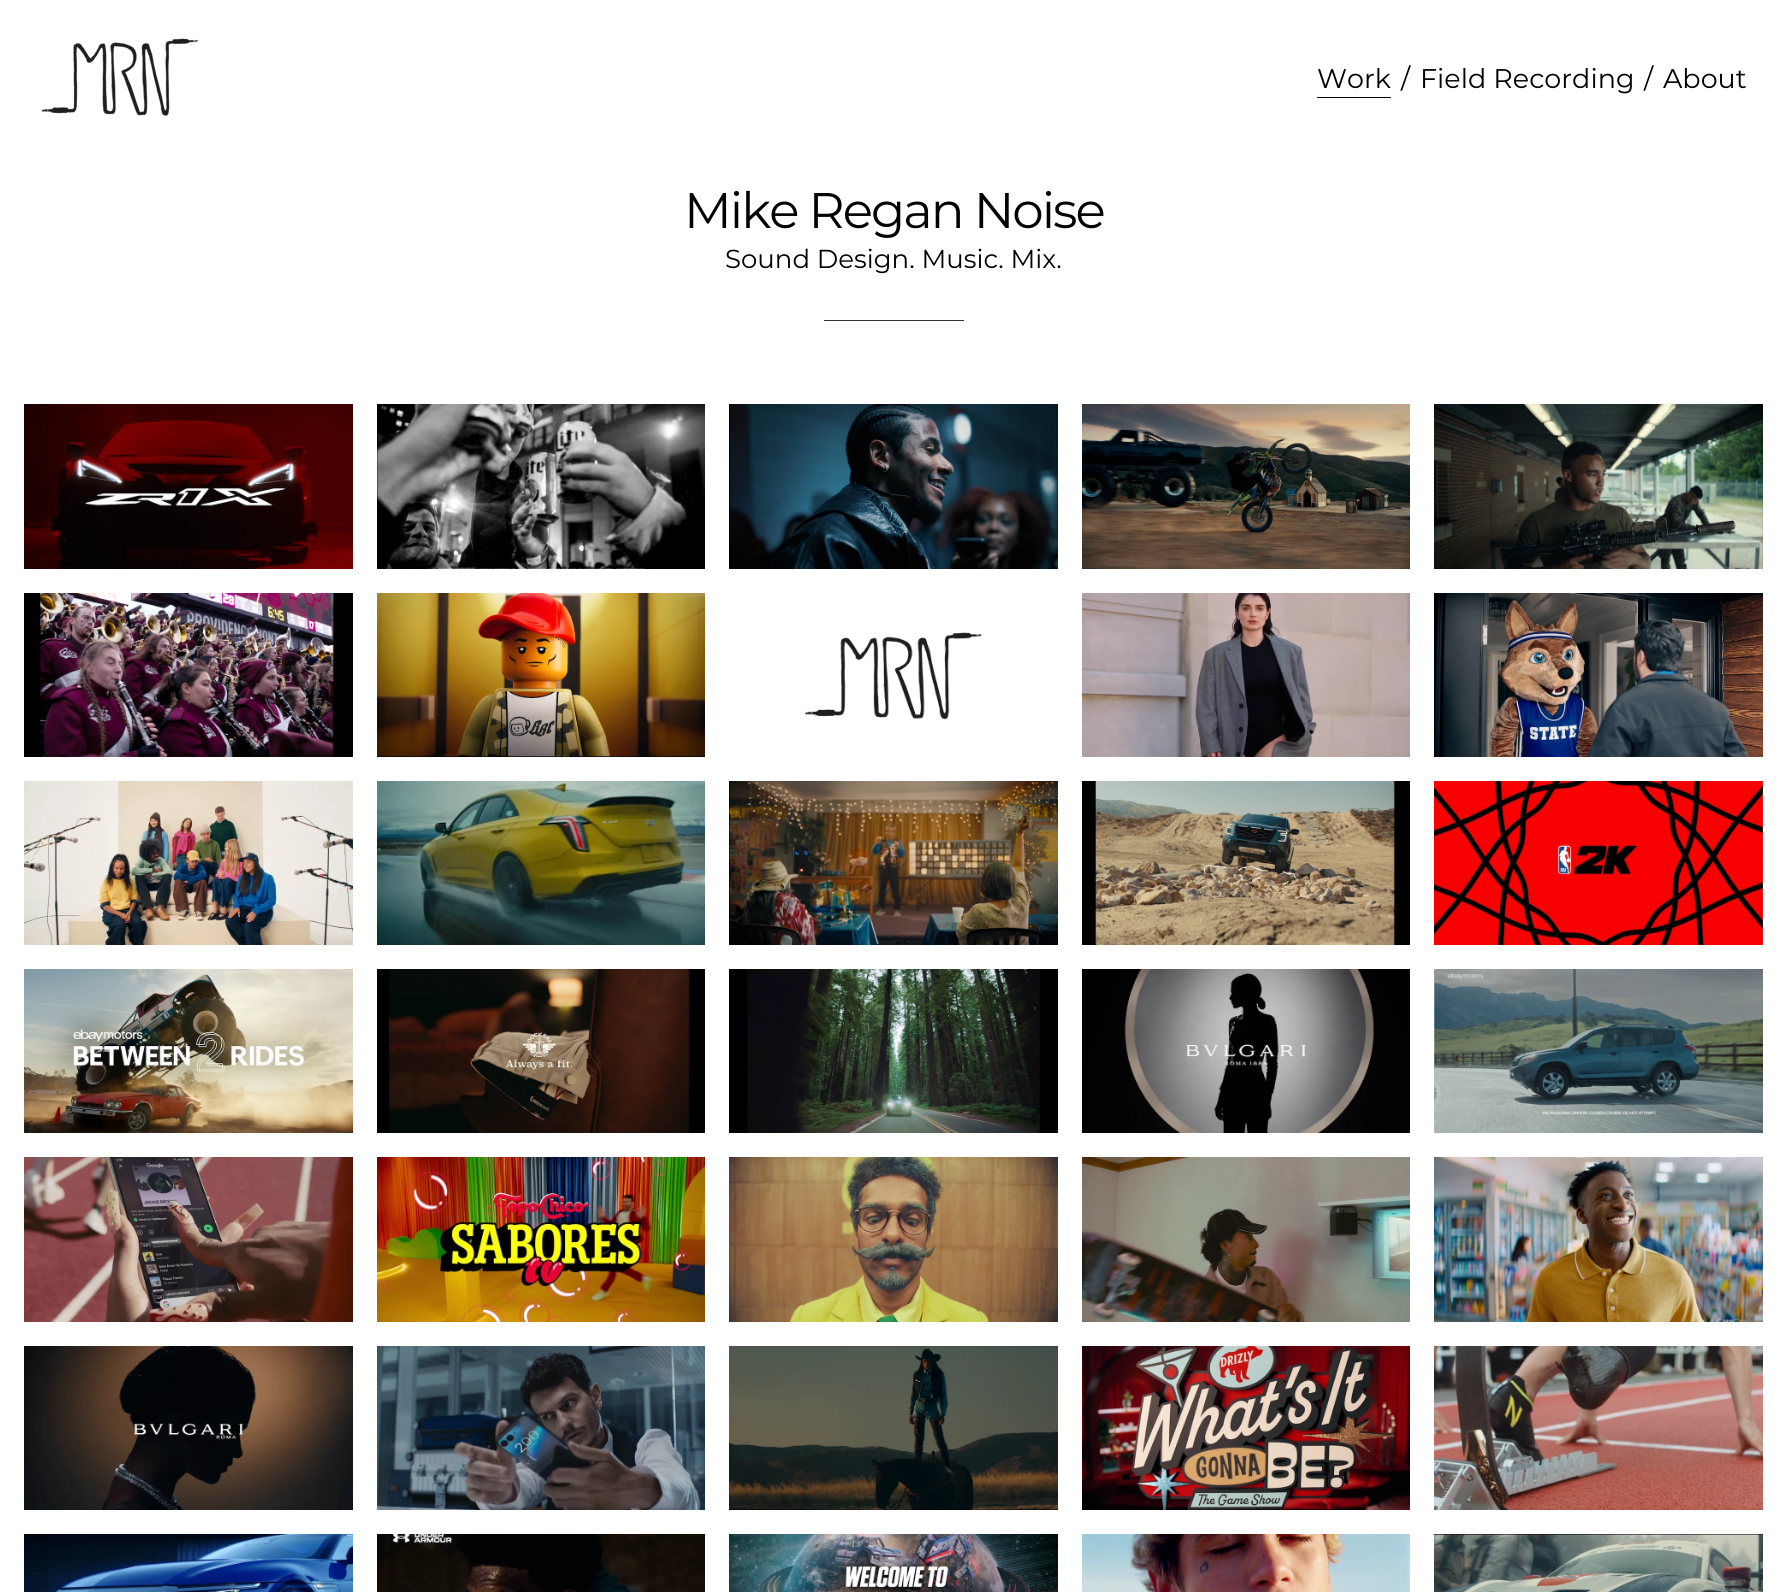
import math
import cairo


def use_color(cr, r, g, b):
  cr.set_source_rgb(r / 255, g / 255, b / 255)

def text(cr, x, y, s, family, size, color, bold=False, italic=False):
  cr.select_font_face(family, cairo.FONT_SLANT_ITALIC if italic else cairo.FONT_SLANT_NORMAL, cairo.FONT_WEIGHT_BOLD if bold else cairo.FONT_WEIGHT_NORMAL)
  cr.set_font_size(size)
  use_color(cr, *color)
  cr.move_to(x, y)
  cr.show_text(s)

def spaced_text(cr, x, y, s, letter, word):
  cr.move_to(x, y)
  for ch in s:
    cr.show_text(ch)
    cr.rel_move_to(letter + word * (ch == ' '), 0)

def box(cr, x, y, w, h, *color):
  use_color(cr, *color)
  cr.rectangle(x, y, w, h)
  cr.fill()

def picture(cr, path, x, y, w, h):
  cr.save()
  cr.set_source_surface(cairo.ImageSurface.create_from_png(path), x, y)
  cr.rectangle(x, y, w, h)
  cr.fill()
  cr.restore()

def draw(cr):
  use_color(cr, 255, 255, 255)
  cr.paint()
  picture(cr, "img_01.png", 41, 38, 158, 78)
  box(cr, 1317, 97, 74, 1, 0, 0, 0)
  box(cr, 824, 320, 140, 1, 51, 51, 51)
  picture(cr, "img_02.png", 24, 404, 329, 165)
  picture(cr, "img_03.png", 24, 593, 329, 164)
  picture(cr, "img_04.png", 24, 781, 329, 164)
  picture(cr, "img_05.png", 24, 969, 329, 164)
  picture(cr, "img_06.png", 24, 1157, 329, 165)
  picture(cr, "img_07.png", 24, 1346, 329, 164)
  picture(cr, "img_08.png", 24, 1534, 329, 58)
  picture(cr, "img_09.png", 377, 404, 328, 165)
  picture(cr, "img_10.png", 377, 593, 328, 164)
  picture(cr, "img_11.png", 377, 781, 328, 164)
  picture(cr, "img_12.png", 377, 969, 328, 164)
  picture(cr, "img_13.png", 377, 1157, 328, 165)
  picture(cr, "img_14.png", 377, 1346, 328, 164)
  picture(cr, "img_15.png", 377, 1534, 328, 58)
  picture(cr, "img_16.png", 729, 404, 329, 165)
  picture(cr, "img_17.png", 805, 632, 177, 88)
  picture(cr, "img_18.png", 729, 781, 329, 164)
  picture(cr, "img_19.png", 729, 969, 329, 164)
  picture(cr, "img_20.png", 729, 1157, 329, 165)
  picture(cr, "img_21.png", 729, 1346, 329, 164)
  picture(cr, "img_22.png", 729, 1534, 329, 58)
  picture(cr, "img_23.png", 1082, 404, 328, 165)
  picture(cr, "img_24.png", 1082, 593, 328, 164)
  picture(cr, "img_25.png", 1082, 781, 328, 164)
  picture(cr, "img_26.png", 1082, 969, 328, 164)
  picture(cr, "img_27.png", 1082, 1157, 328, 165)
  picture(cr, "img_28.png", 1082, 1346, 328, 164)
  picture(cr, "img_29.png", 1082, 1534, 328, 58)
  picture(cr, "img_30.png", 1434, 404, 329, 165)
  picture(cr, "img_31.png", 1434, 593, 329, 164)
  picture(cr, "img_32.png", 1434, 781, 329, 164)
  picture(cr, "img_33.png", 1434, 969, 329, 164)
  picture(cr, "img_34.png", 1434, 1157, 329, 165)
  picture(cr, "img_35.png", 1434, 1346, 329, 164)
  picture(cr, "img_36.png", 1434, 1534, 329, 58)
  text(cr, 1317, 88, "Work", "Montserrat", 27, (0, 0, 0))
  text(cr, 1401, 88, "/", "Montserrat", 27, (0, 0, 0))
  text(cr, 1420, 88, "Field Recording", "Montserrat", 27, (0, 0, 0))
  text(cr, 1644, 88, "/", "Montserrat", 27, (0, 0, 0))
  text(cr, 1663, 88, "About", "Montserrat", 27, (0, 0, 0))
  cr.set_font_size(50)
  spaced_text(cr, 684, 228, "Mike Regan Noise", -2, 0)
  text(cr, 725, 268, "Sound Design. Music. Mix.", "Montserrat", 26, (0, 0, 0))


surface = cairo.ImageSurface(cairo.FORMAT_RGB24, 1787, 1592)
cr = cairo.Context(surface)
options = cairo.FontOptions()
options.set_hint_metrics(cairo.HINT_METRICS_OFF)
options.set_hint_style(cairo.HINT_STYLE_NONE)
cr.set_font_options(options)
cr.set_miter_limit(4)
draw(cr)
surface.write_to_png("out.png")
